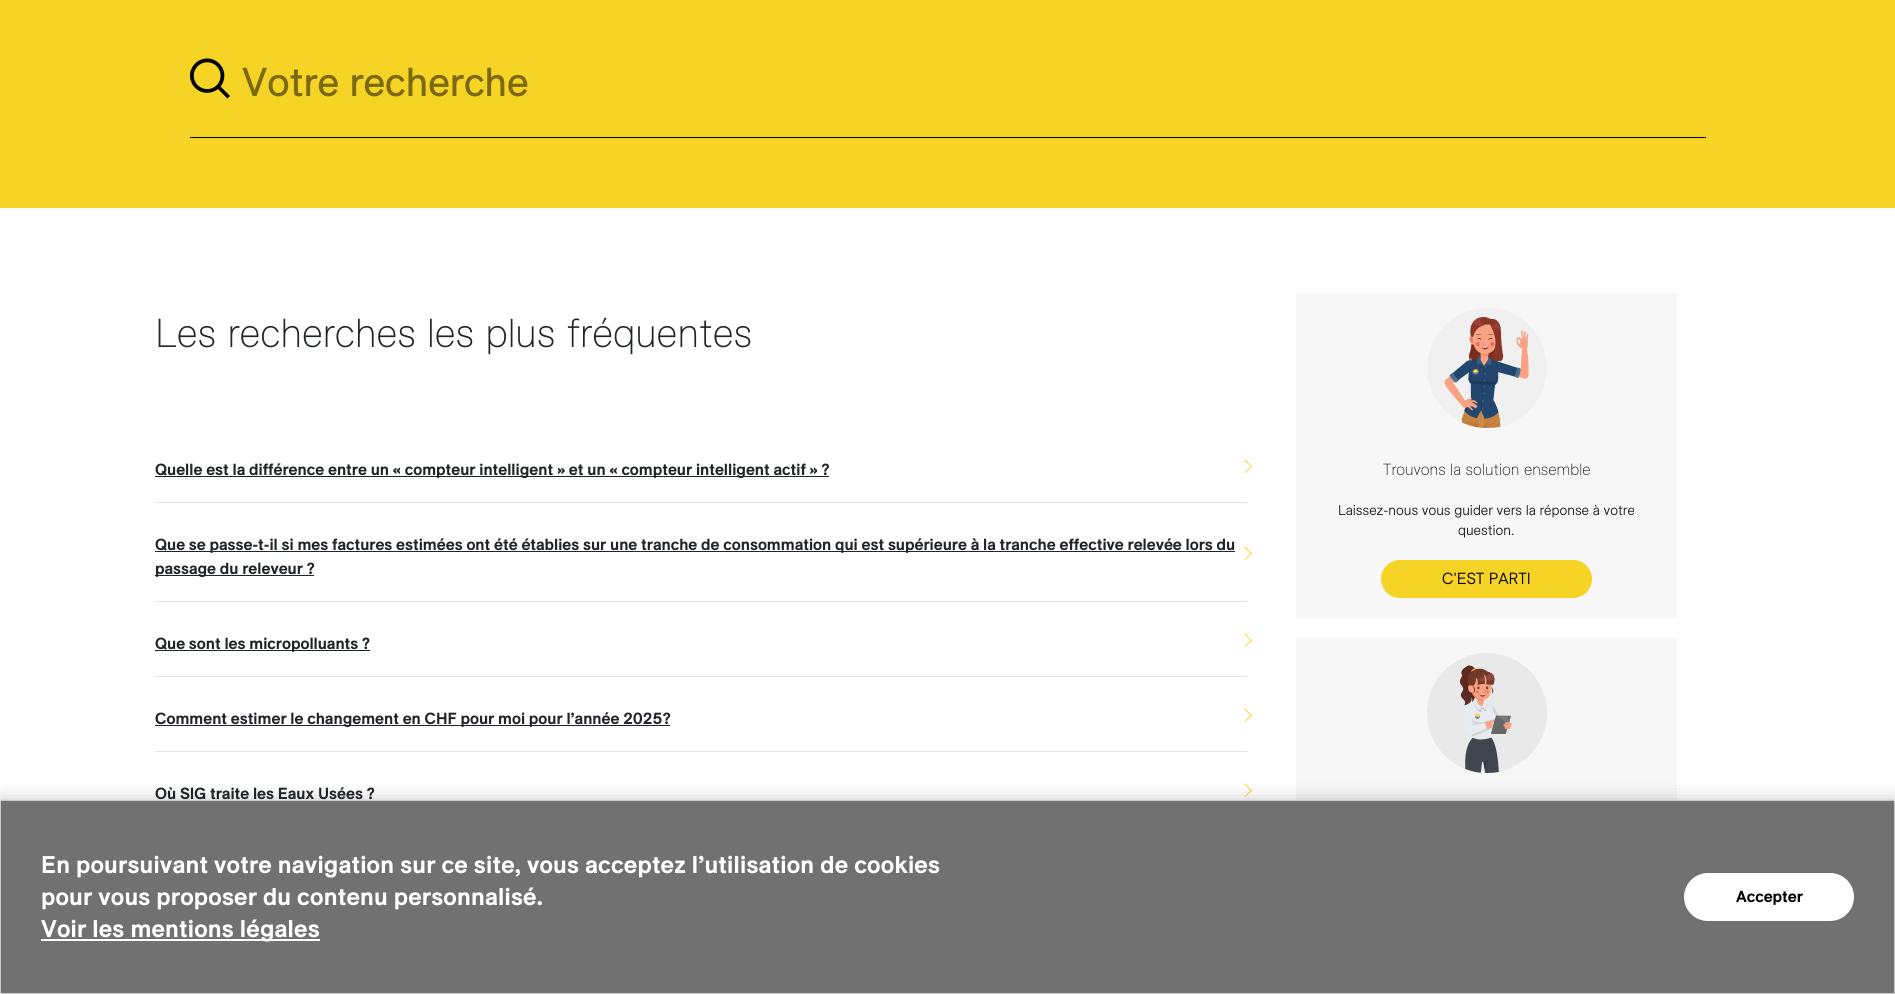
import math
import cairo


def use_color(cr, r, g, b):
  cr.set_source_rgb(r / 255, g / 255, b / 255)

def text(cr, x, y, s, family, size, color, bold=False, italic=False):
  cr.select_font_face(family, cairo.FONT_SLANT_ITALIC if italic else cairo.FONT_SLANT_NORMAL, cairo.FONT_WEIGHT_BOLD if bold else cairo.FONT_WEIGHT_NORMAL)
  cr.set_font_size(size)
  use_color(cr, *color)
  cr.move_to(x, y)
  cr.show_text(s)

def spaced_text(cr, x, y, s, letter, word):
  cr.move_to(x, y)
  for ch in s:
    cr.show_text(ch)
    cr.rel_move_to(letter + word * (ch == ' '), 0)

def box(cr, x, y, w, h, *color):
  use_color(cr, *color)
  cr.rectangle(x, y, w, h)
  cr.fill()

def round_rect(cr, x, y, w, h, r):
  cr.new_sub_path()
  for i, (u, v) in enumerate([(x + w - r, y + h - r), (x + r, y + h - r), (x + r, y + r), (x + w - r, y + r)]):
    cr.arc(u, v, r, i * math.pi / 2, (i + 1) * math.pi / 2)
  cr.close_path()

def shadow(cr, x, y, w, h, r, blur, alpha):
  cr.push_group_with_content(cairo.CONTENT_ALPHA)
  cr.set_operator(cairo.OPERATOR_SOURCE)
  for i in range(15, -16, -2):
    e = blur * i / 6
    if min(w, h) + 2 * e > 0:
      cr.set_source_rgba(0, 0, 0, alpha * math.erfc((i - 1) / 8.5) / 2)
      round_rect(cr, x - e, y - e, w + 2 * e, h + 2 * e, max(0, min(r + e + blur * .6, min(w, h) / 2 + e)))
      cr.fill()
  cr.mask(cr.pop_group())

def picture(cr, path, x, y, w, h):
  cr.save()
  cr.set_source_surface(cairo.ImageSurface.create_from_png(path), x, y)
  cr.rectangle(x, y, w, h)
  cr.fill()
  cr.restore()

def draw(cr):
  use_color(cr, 255, 255, 255)
  cr.paint()
  box(cr, 0, 0, 1895, 208, 246, 212, 37)
  box(cr, 190, 137, 1516, 1, 0, 0, 0)
  picture(cr, "img_01.png", 190, 58, 40, 41)
  box(cr, 155, 502, 1092, 1, 226, 227, 227)
  box(cr, 155, 476, 674, 1, 33, 37, 41)
  use_color(cr, 246, 212, 37)
  cr.new_path()
  cr.move_to(1245, 459.5)
  cr.line_to(1252, 466.5)
  cr.line_to(1251.5, 467)
  cr.line_to(1244.5, 460.5)
  cr.close_path()
  cr.fill()
  cr.new_path()
  cr.move_to(1251.5, 465.5)
  cr.line_to(1252, 466.5)
  cr.line_to(1245, 473)
  cr.line_to(1244.5, 472.5)
  cr.close_path()
  cr.fill()
  box(cr, 155, 601, 1092, 1, 226, 227, 227)
  box(cr, 155, 551, 1080, 1, 33, 37, 41)
  box(cr, 155, 575, 159, 1, 33, 37, 41)
  use_color(cr, 246, 212, 37)
  cr.new_path()
  cr.move_to(1245, 546.5)
  cr.line_to(1252, 553.5)
  cr.line_to(1251.5, 554)
  cr.line_to(1244.5, 547.5)
  cr.close_path()
  cr.fill()
  cr.new_path()
  cr.move_to(1251.5, 552.5)
  cr.line_to(1252, 553.5)
  cr.line_to(1245, 560)
  cr.line_to(1244.5, 559.5)
  cr.close_path()
  cr.fill()
  box(cr, 155, 676, 1092, 1, 226, 227, 227)
  box(cr, 155, 650, 215, 1, 33, 37, 41)
  use_color(cr, 246, 212, 37)
  cr.new_path()
  cr.move_to(1245, 633.5)
  cr.line_to(1252, 640.5)
  cr.line_to(1251.5, 641)
  cr.line_to(1244.5, 634.5)
  cr.close_path()
  cr.fill()
  cr.new_path()
  cr.move_to(1251.5, 639.5)
  cr.line_to(1252, 640.5)
  cr.line_to(1245, 647)
  cr.line_to(1244.5, 646.5)
  cr.close_path()
  cr.fill()
  box(cr, 155, 751, 1092, 1, 226, 227, 227)
  box(cr, 155, 725, 515, 1, 33, 37, 41)
  use_color(cr, 246, 212, 37)
  cr.new_path()
  cr.move_to(1245, 708.5)
  cr.line_to(1252, 715.5)
  cr.line_to(1251.5, 716)
  cr.line_to(1244.5, 709.5)
  cr.close_path()
  cr.fill()
  cr.new_path()
  cr.move_to(1251.5, 714.5)
  cr.line_to(1252, 715.5)
  cr.line_to(1245, 722)
  cr.line_to(1244.5, 721.5)
  cr.close_path()
  cr.fill()
  cr.new_path()
  cr.move_to(1245, 783.5)
  cr.line_to(1252, 790.5)
  cr.line_to(1251.5, 791)
  cr.line_to(1244.5, 784.5)
  cr.close_path()
  cr.fill()
  cr.new_path()
  cr.move_to(1251.5, 789.5)
  cr.line_to(1252, 790.5)
  cr.line_to(1245, 797)
  cr.line_to(1244.5, 796.5)
  cr.close_path()
  cr.fill()
  box(cr, 1296, 293, 381, 325, 247, 247, 247)
  picture(cr, "img_02.png", 1427, 308, 120, 120)
  use_color(cr, 246, 212, 37)
  round_rect(cr, 1381.5, 560.5, 210, 37, 18.5)
  cr.fill_preserve()
  cr.set_line_width(1)
  cr.stroke()
  box(cr, 1296, 638, 381, 162, 247, 247, 247)
  picture(cr, "img_03.png", 1427, 653, 120, 120)
  use_color(cr, 0, 0, 0)
  shadow(cr, 0, 803, 1895, 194, 0, 10, 0.3)
  use_color(cr, 112, 113, 112)
  cr.rectangle(0.5, 800.5, 1894, 193)
  cr.fill_preserve()
  use_color(cr, 204, 204, 204)
  cr.stroke()
  box(cr, 41, 939, 279, 2, 255, 255, 255)
  round_rect(cr, 1684, 873, 170, 48, 24)
  cr.fill()
  text(cr, 242, 96, "Votre recherche", "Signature", 40, (123, 106, 19))
  text(cr, 155, 347, "Les recherches les plus fréquentes", "Signature ExtraLight", 40, (33, 37, 41))
  text(cr, 155, 475, "Quelle est la différence entre un « compteur intelligent » et un « compteur intelligent actif » ?", "Signature", 16, (33, 37, 41), bold=True)
  text(cr, 155, 550, "Que se passe-t-il si mes factures estimées ont été établies sur une tranche de consommation qui est supérieure à la tranche effective relevée lors du", "Signature", 16, (33, 37, 41), bold=True)
  text(cr, 155, 574, "passage du releveur ?", "Signature", 16, (33, 37, 41), bold=True)
  text(cr, 155, 649, "Que sont les micropolluants ?", "Signature", 16, (33, 37, 41), bold=True)
  text(cr, 155, 724, "Comment estimer le changement en CHF pour moi pour l’année 2025 ?", "Signature", 16, (33, 37, 41), bold=True)
  text(cr, 155, 799, "Où SIG traite les Eaux Usées ?", "Signature", 16, (33, 37, 41), bold=True)
  text(cr, 1383, 475, "Trouvons la solution ensemble", "Signature ExtraLight", 16, (33, 37, 41))
  text(cr, 1338, 515, "Laissez-nous vous guider vers la réponse à votre", "Signature Light", 14, (33, 37, 41))
  text(cr, 1458, 535, "question.", "Signature Light", 14, (33, 37, 41))
  text(cr, 1442, 584, "C'EST PARTI", "Signature Light", 16, (0, 0, 0))
  cr.select_font_face("Signature", cairo.FONT_SLANT_NORMAL, cairo.FONT_WEIGHT_BOLD)
  cr.set_font_size(24)
  use_color(cr, 255, 255, 255)
  spaced_text(cr, 41, 873, "En poursuivant votre navigation sur ce site, vous acceptez l’utilisation de cookies", 0.2, 0)
  spaced_text(cr, 41, 905, "pour vous proposer du contenu personnalisé.", 0.2, 0)
  spaced_text(cr, 41, 937, "Voir les mentions légales", 0.2, 0)
  text(cr, 1736, 902, "Accepter", "Signature", 16, (0, 0, 0), bold=True)


surface = cairo.ImageSurface(cairo.FORMAT_RGB24, 1895, 994)
cr = cairo.Context(surface)
options = cairo.FontOptions()
options.set_hint_metrics(cairo.HINT_METRICS_OFF)
options.set_hint_style(cairo.HINT_STYLE_NONE)
cr.set_font_options(options)
cr.set_miter_limit(4)
draw(cr)
surface.write_to_png("out.png")
